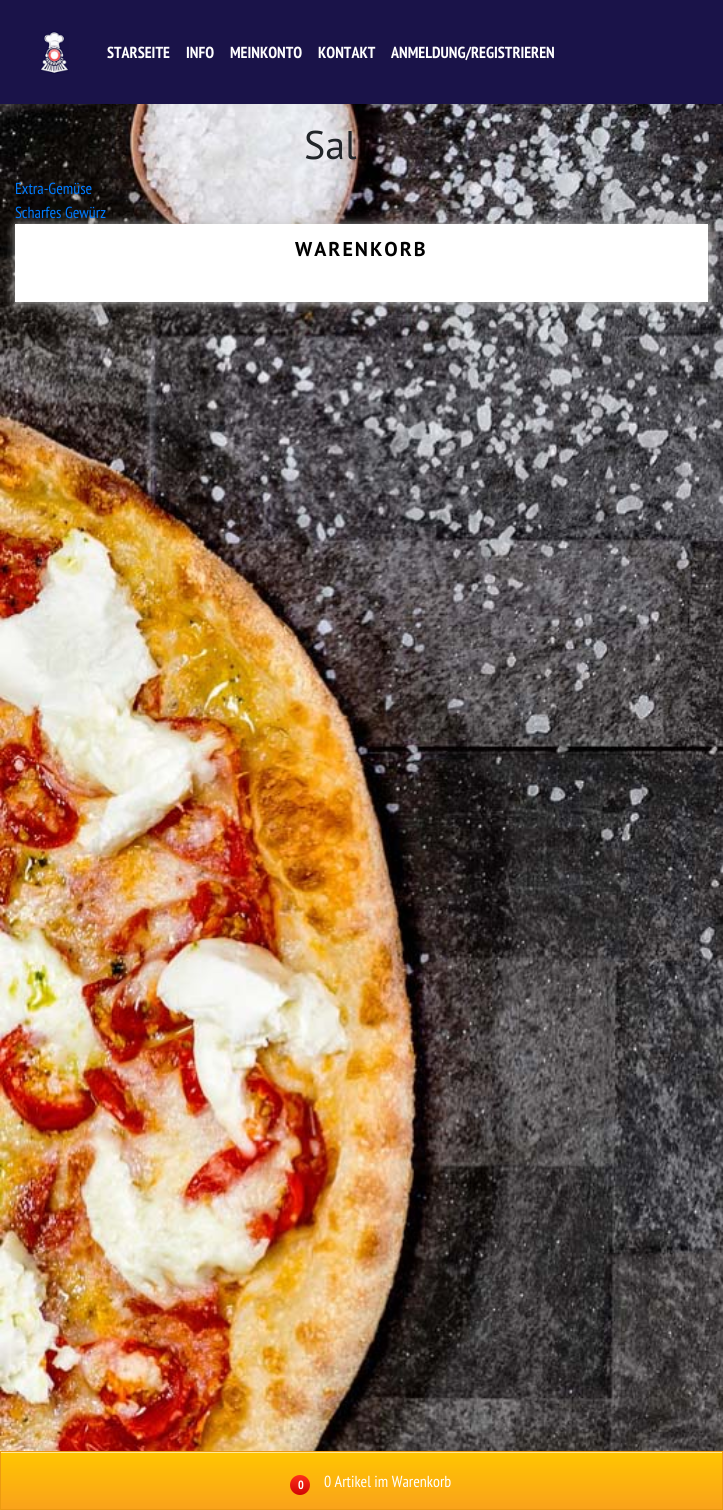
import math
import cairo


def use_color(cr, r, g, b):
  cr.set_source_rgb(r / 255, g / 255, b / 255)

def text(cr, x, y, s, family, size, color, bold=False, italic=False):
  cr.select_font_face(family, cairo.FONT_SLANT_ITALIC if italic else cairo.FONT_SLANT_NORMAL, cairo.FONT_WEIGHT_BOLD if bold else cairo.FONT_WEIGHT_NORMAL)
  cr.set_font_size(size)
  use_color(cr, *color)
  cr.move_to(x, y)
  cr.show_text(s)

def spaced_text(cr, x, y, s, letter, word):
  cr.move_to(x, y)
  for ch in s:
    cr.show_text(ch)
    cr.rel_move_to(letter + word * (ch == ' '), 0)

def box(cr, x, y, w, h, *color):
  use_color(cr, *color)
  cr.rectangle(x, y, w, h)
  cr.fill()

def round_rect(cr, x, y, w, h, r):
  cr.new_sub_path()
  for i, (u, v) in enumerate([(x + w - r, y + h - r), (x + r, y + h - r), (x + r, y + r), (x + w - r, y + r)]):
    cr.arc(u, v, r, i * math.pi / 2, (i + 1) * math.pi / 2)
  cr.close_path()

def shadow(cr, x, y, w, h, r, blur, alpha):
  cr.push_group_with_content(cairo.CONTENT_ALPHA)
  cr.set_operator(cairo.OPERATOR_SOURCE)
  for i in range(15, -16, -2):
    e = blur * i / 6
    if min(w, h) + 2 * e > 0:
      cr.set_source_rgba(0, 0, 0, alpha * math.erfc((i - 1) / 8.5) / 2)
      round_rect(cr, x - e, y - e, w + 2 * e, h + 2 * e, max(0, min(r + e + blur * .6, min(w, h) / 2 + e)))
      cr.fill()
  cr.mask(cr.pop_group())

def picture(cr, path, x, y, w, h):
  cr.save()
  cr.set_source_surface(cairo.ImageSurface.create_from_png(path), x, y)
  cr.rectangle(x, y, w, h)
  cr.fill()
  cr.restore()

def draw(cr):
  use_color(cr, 255, 255, 255)
  cr.paint()
  picture(cr, "img_01.png", 0, 104, 723, 1347)
  box(cr, 0, 0, 723, 104, 26, 19, 73)
  picture(cr, "img_02.png", 40, 31, 29, 43)
  gradient = cairo.LinearGradient(362, 1509, 362, 1452)
  gradient.add_color_stop_rgba(0, 0.98, 0.635, 0.106, 1)
  gradient.add_color_stop_rgba(1, 1, 0.776, 0, 1)
  cr.set_source(gradient)
  cr.rectangle(1, 1453, 721, 56)
  cr.fill()
  box(cr, 1, 1452, 721, 1, 255, 232, 153)
  cr.rectangle(0.5, 1451.5, 722, 58)
  use_color(cr, 236, 154, 16)
  cr.set_line_width(1)
  cr.stroke()
  gradient = cairo.LinearGradient(300, 1475, 300, 1495)
  gradient.add_color_stop_rgba(0, 1, 0.188, 0.098, 1)
  gradient.add_color_stop_rgba(1, 0.812, 0.016, 0.016, 1)
  cr.set_source(gradient)
  cr.arc(300, 1485, 10, 0, 2 * math.pi)
  cr.fill()
  use_color(cr, 187, 187, 187)
  shadow(cr, 16, 225, 693, 78, 0, 5, 1)
  box(cr, 15, 224, 693, 78, 255, 255, 255)
  text(cr, 107, 58, "STARSEITE", "PT Sans Narrow", 16, (255, 255, 255), bold=True)
  text(cr, 186, 58, "INFO", "PT Sans Narrow", 16, (255, 255, 255), bold=True)
  text(cr, 230, 58, "MEINKONTO", "PT Sans Narrow", 16, (255, 255, 255), bold=True)
  text(cr, 318, 58, "KONTAKT", "PT Sans Narrow", 16, (255, 255, 255), bold=True)
  text(cr, 391, 58, "ANMELDUNG/REGISTRIEREN", "PT Sans Narrow", 16, (255, 255, 255), bold=True)
  text(cr, 298, 1489, "0", "PT Sans Narrow", 12, (255, 255, 255), bold=True)
  text(cr, 324, 1487, "0 Artikel im Warenkorb", "PT Sans Narrow", 16, (255, 255, 255))
  text(cr, 304, 159, "Sal", "PT Sans", 40, (33, 37, 41))
  text(cr, 15, 194, "Extra-Gemüse", "PT Sans Narrow", 16, (0, 123, 255))
  text(cr, 15, 218, "Scharfes Gewürz", "PT Sans Narrow", 16, (0, 123, 255))
  cr.select_font_face("PT Sans", cairo.FONT_SLANT_NORMAL, cairo.FONT_WEIGHT_BOLD)
  cr.set_font_size(20)
  use_color(cr, 0, 0, 0)
  spaced_text(cr, 295, 256, "WARENKORB", 2, 0)


surface = cairo.ImageSurface(cairo.FORMAT_RGB24, 723, 1510)
cr = cairo.Context(surface)
options = cairo.FontOptions()
options.set_hint_metrics(cairo.HINT_METRICS_OFF)
options.set_hint_style(cairo.HINT_STYLE_NONE)
cr.set_font_options(options)
cr.set_miter_limit(4)
draw(cr)
surface.write_to_png("out.png")
